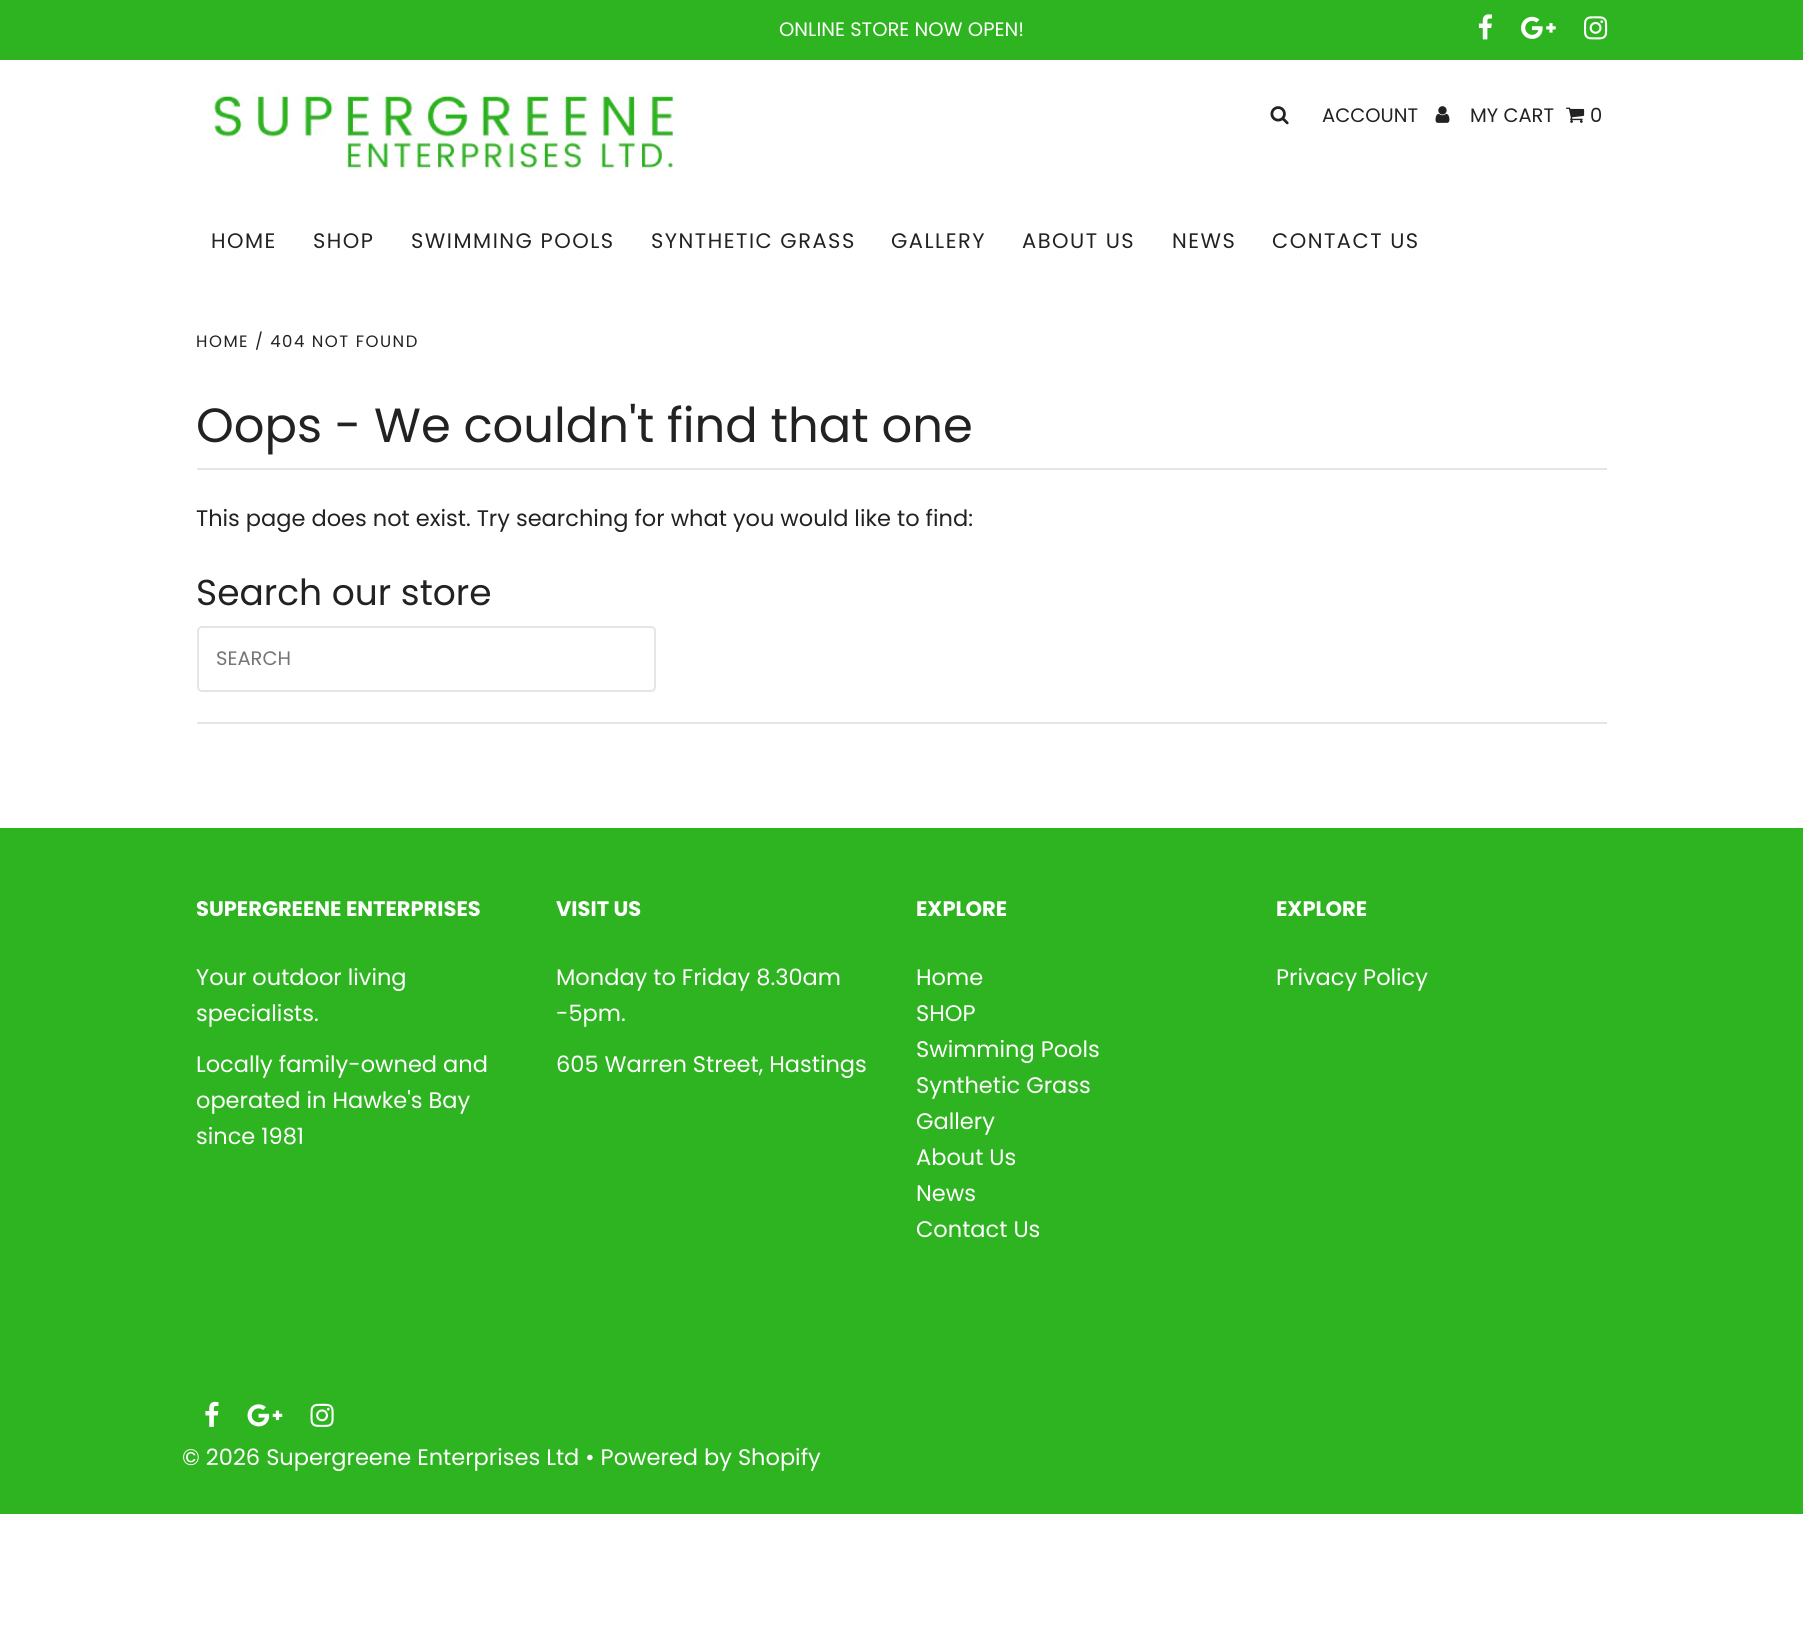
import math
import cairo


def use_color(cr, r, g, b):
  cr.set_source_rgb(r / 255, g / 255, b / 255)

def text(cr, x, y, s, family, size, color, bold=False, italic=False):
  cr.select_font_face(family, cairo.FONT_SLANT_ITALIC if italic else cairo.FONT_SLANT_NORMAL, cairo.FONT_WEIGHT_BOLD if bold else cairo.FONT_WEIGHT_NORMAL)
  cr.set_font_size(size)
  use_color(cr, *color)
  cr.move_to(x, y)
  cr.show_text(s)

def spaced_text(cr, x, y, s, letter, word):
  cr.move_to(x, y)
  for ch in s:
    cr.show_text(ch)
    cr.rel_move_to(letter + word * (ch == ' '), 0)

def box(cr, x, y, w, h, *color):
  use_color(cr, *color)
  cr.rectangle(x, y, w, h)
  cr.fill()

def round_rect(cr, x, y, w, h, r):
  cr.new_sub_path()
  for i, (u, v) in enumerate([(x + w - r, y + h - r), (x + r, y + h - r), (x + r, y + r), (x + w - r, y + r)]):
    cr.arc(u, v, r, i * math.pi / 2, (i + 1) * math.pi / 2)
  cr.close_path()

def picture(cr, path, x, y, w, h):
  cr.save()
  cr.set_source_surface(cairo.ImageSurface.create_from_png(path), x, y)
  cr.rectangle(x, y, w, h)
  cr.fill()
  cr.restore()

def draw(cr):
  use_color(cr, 255, 255, 255)
  cr.paint()
  box(cr, 0, 0, 1803, 60, 47, 180, 33)
  picture(cr, "img_01.png", 1478, 14, 14, 26)
  picture(cr, "img_02.png", 1521, 16, 35, 23)
  picture(cr, "img_03.png", 1584, 16, 24, 24)
  picture(cr, "img_04.png", 212, 91, 468, 80)
  picture(cr, "img_05.png", 1270, 106, 19, 19)
  picture(cr, "img_06.png", 1435, 106, 15, 17)
  picture(cr, "img_07.png", 1566, 107, 19, 16)
  box(cr, 197, 468, 1410, 2, 229, 229, 229)
  box(cr, 197, 722, 1410, 2, 229, 229, 229)
  round_rect(cr, 198, 627, 457, 64, 4)
  cr.stroke()
  box(cr, 0, 828, 1803, 686, 47, 180, 33)
  picture(cr, "img_08.png", 205, 1401, 14, 26)
  picture(cr, "img_09.png", 247, 1404, 36, 23)
  picture(cr, "img_10.png", 310, 1403, 24, 24)
  text(cr, 779, 36, "ONLINE STORE NOW OPEN!", "Poppins", 19.5, (255, 255, 255))
  text(cr, 1322, 122, "ACCOUNT", "Poppins", 19.5, (34, 34, 34))
  text(cr, 1470, 122, "MY CART", "Poppins", 19.5, (34, 34, 34))
  text(cr, 1590, 122, "0", "Poppins", 19.5, (34, 34, 34))
  cr.set_font_size(21)
  spaced_text(cr, 211, 248, "HOME", 1.5, 0)
  spaced_text(cr, 313, 248, "SHOP", 1.5, 0)
  spaced_text(cr, 411, 248, "SWIMMING POOLS", 1.5, 0)
  spaced_text(cr, 651, 248, "SYNTHETIC GRASS", 1.5, 0)
  spaced_text(cr, 891, 248, "GALLERY", 1.5, 0)
  spaced_text(cr, 1022, 248, "ABOUT US", 1.5, 0)
  spaced_text(cr, 1172, 248, "NEWS", 1.5, 0)
  spaced_text(cr, 1272, 248, "CONTACT US", 1.5, 0)
  cr.set_font_size(16.5)
  spaced_text(cr, 196, 347, "HOME / 404 NOT FOUND", 1.5, 0)
  text(cr, 196, 442, "Oops - We couldn't find that one", "Poppins", 48, (34, 34, 34))
  text(cr, 196, 526, "This page does not exist. Try searching for what you would like to find:", "Poppins", 22.5, (34, 34, 34))
  text(cr, 196, 605, "Search our store", "Poppins", 36, (34, 34, 34))
  text(cr, 216, 665, "SEARCH", "Poppins", 19.5, (117, 117, 117))
  text(cr, 196, 916, "SUPERGREENE ENTERPRISES", "Poppins", 21, (255, 255, 255), bold=True)
  text(cr, 196, 985, "Your outdoor living", "Poppins", 22.5, (255, 255, 255))
  text(cr, 196, 1021, "specialists.", "Poppins", 22.5, (255, 255, 255))
  text(cr, 196, 1072, "Locally family-owned and", "Poppins", 22.5, (255, 255, 255))
  text(cr, 196, 1108, "operated in Hawke's Bay", "Poppins", 22.5, (255, 255, 255))
  text(cr, 196, 1144, "since 1981", "Poppins", 22.5, (255, 255, 255))
  text(cr, 556, 916, "VISIT US", "Poppins", 21, (255, 255, 255), bold=True)
  text(cr, 556, 985, "Monday to Friday 8.30am", "Poppins", 22.5, (255, 255, 255))
  text(cr, 556, 1021, "-5pm.", "Poppins", 22.5, (255, 255, 255))
  text(cr, 556, 1072, "605 Warren Street, Hastings", "Poppins", 22.5, (255, 255, 255))
  text(cr, 916, 916, "EXPLORE", "Poppins", 21, (255, 255, 255), bold=True)
  text(cr, 916, 985, "Home", "Poppins", 22.5, (255, 255, 255))
  text(cr, 916, 1021, "SHOP", "Poppins", 22.5, (255, 255, 255))
  text(cr, 916, 1057, "Swimming Pools", "Poppins", 22.5, (255, 255, 255))
  text(cr, 916, 1093, "Synthetic Grass", "Poppins", 22.5, (255, 255, 255))
  text(cr, 916, 1129, "Gallery", "Poppins", 22.5, (255, 255, 255))
  text(cr, 916, 1165, "About Us", "Poppins", 22.5, (255, 255, 255))
  text(cr, 916, 1201, "News", "Poppins", 22.5, (255, 255, 255))
  text(cr, 916, 1237, "Contact Us", "Poppins", 22.5, (255, 255, 255))
  text(cr, 1276, 916, "EXPLORE", "Poppins", 21, (255, 255, 255), bold=True)
  text(cr, 1276, 985, "Privacy Policy", "Poppins", 22.5, (255, 255, 255))
  text(cr, 182, 1465, "© 2026 Supergreene Enterprises Ltd • Powered by Shopify", "Poppins", 22.5, (255, 255, 255))


surface = cairo.ImageSurface(cairo.FORMAT_RGB24, 1803, 1646)
cr = cairo.Context(surface)
options = cairo.FontOptions()
options.set_hint_metrics(cairo.HINT_METRICS_OFF)
options.set_hint_style(cairo.HINT_STYLE_NONE)
cr.set_font_options(options)
cr.set_miter_limit(4)
draw(cr)
surface.write_to_png("out.png")
